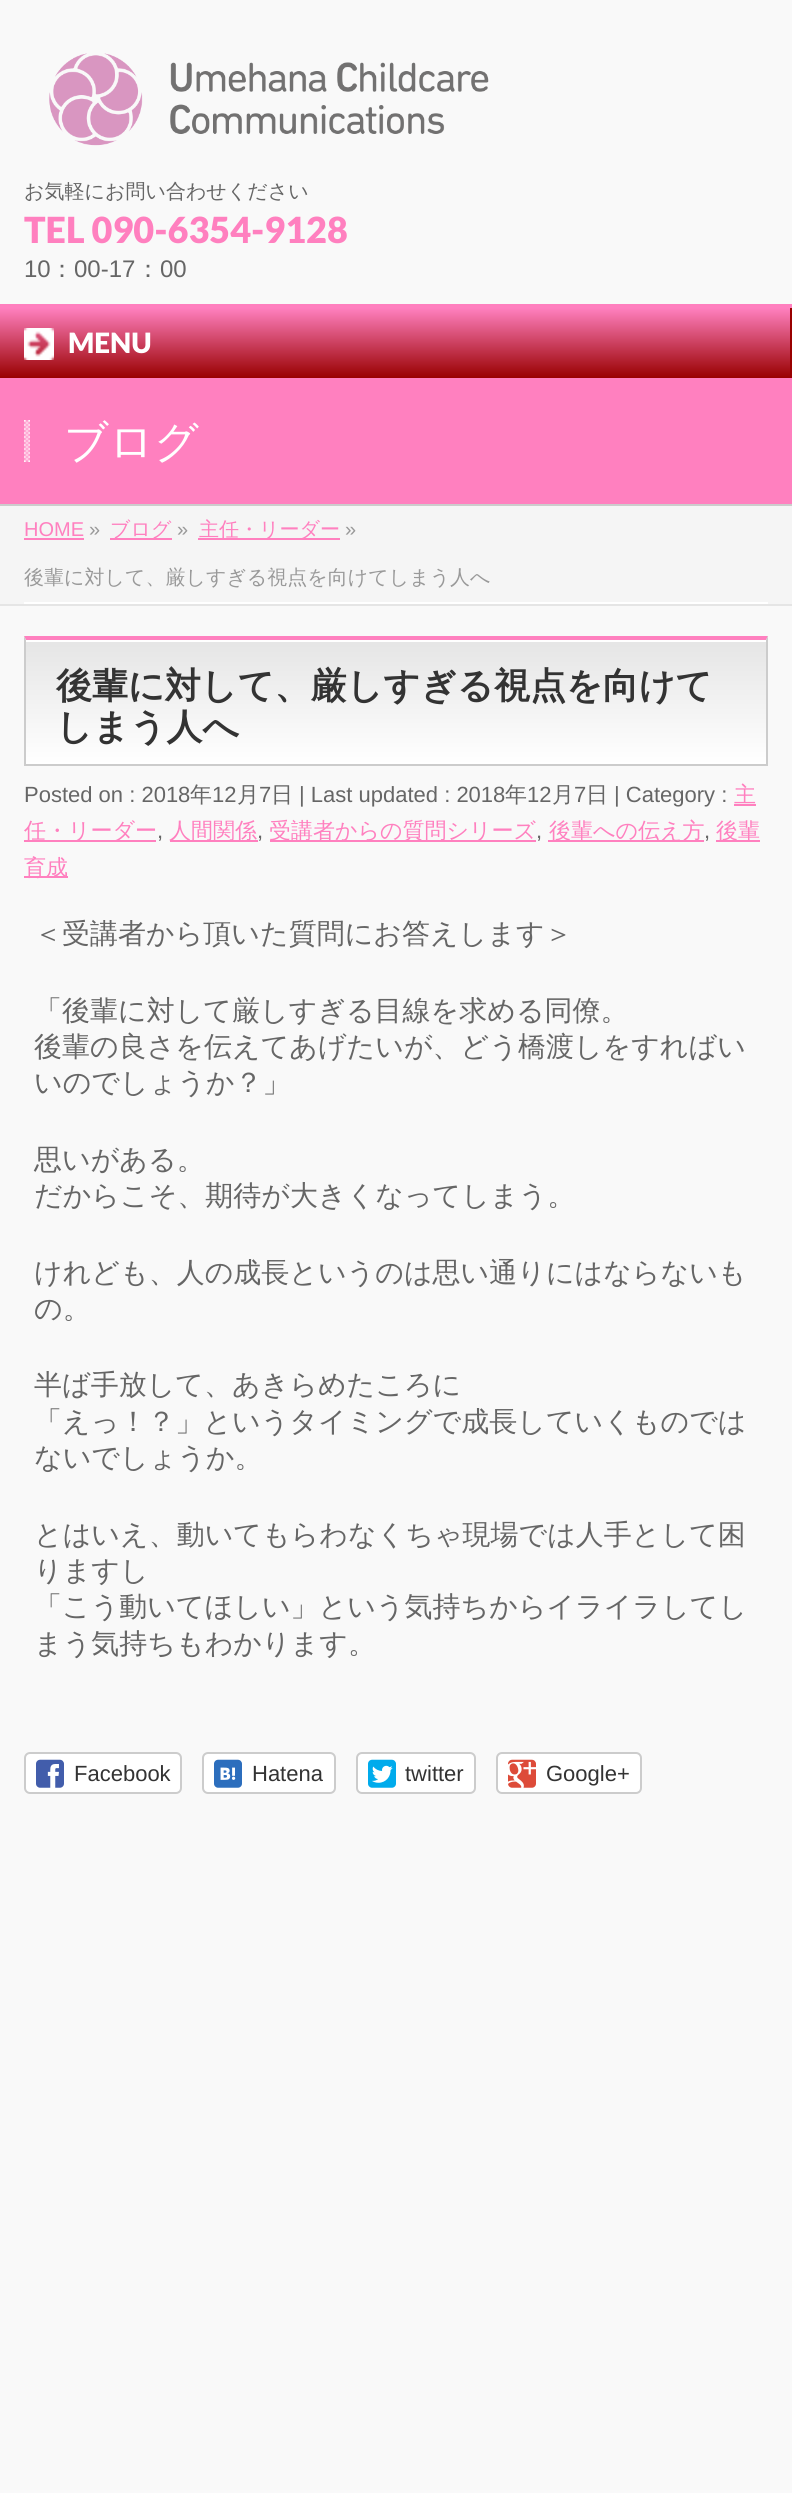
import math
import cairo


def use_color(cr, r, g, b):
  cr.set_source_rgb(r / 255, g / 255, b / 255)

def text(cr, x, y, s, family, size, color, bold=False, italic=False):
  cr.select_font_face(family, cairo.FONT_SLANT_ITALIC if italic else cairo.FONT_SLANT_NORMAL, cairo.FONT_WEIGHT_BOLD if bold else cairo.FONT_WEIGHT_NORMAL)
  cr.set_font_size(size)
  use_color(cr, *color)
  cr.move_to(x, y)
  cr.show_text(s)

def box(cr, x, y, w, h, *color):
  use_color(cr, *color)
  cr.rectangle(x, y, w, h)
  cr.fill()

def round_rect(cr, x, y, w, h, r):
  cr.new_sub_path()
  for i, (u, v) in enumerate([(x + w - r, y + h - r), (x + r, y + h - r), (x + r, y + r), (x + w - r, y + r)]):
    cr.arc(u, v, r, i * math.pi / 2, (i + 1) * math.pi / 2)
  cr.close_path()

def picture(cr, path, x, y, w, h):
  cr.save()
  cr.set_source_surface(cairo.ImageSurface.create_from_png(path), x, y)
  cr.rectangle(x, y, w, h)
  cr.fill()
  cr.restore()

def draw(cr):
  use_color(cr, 249, 249, 249)
  cr.paint()
  picture(cr, "img_01.png", 49, 53, 440, 93)
  box(cr, 0, 304, 792, 4, 255, 128, 191)
  gradient = cairo.LinearGradient(395, 308, 395, 378)
  gradient.add_color_stop_rgba(0, 1, 0.502, 0.749, 1)
  gradient.add_color_stop_rgba(1, 0.6, 0, 0, 1)
  cr.set_source(gradient)
  cr.rectangle(0, 308, 790, 70)
  cr.fill()
  box(cr, 790, 308, 2, 70, 153, 0, 0)
  picture(cr, "img_02.png", 24, 328, 30, 32)
  box(cr, 0, 378, 792, 126, 255, 128, 191)
  box(cr, 0, 504, 792, 2, 204, 204, 204)
  picture(cr, "img_03.png", 24, 420, 6, 42)
  box(cr, 0, 506, 792, 98, 245, 245, 245)
  box(cr, 0, 604, 792, 2, 229, 229, 229)
  box(cr, 24, 602, 744, 2, 255, 255, 255)
  box(cr, 24, 538, 60, 2, 255, 128, 191)
  box(cr, 110, 538, 62, 2, 255, 128, 191)
  box(cr, 198, 538, 142, 2, 255, 128, 191)
  gradient = cairo.LinearGradient(26, 640, 26, 764)
  gradient.add_color_stop_rgba(0, 0.898, 0.898, 0.898, 1)
  gradient.add_color_stop_rgba(1, 1, 1, 1, 1)
  cr.set_source(gradient)
  cr.rectangle(26, 642, 740, 122)
  cr.fill()
  box(cr, 26, 640, 740, 2, 255, 255, 255)
  use_color(cr, 255, 128, 191)
  cr.new_path()
  cr.move_to(24, 636)
  cr.line_to(768, 636)
  cr.line_to(766, 640)
  cr.line_to(26, 640)
  cr.close_path()
  cr.fill()
  use_color(cr, 204, 204, 204)
  cr.new_path()
  cr.move_to(768, 636)
  cr.line_to(768, 766)
  cr.line_to(766, 764)
  cr.line_to(766, 640)
  cr.close_path()
  cr.fill()
  box(cr, 24, 764, 744, 2, 204, 204, 204)
  cr.new_path()
  cr.move_to(24, 766)
  cr.line_to(24, 636)
  cr.line_to(26, 640)
  cr.line_to(26, 764)
  cr.close_path()
  cr.fill()
  box(cr, 734, 804, 22, 2, 255, 128, 191)
  box(cr, 24, 840, 132, 2, 255, 128, 191)
  box(cr, 170, 840, 88, 2, 255, 128, 191)
  box(cr, 270, 840, 266, 2, 255, 128, 191)
  box(cr, 548, 840, 156, 2, 255, 128, 191)
  box(cr, 716, 840, 44, 2, 255, 128, 191)
  box(cr, 24, 876, 44, 2, 255, 128, 191)
  use_color(cr, 255, 255, 255)
  round_rect(cr, 25, 1753, 156, 40, 5)
  cr.fill_preserve()
  use_color(cr, 204, 204, 204)
  cr.stroke()
  picture(cr, "img_04.png", 36, 1759, 28, 29)
  use_color(cr, 255, 255, 255)
  round_rect(cr, 203, 1753, 132, 40, 5)
  cr.fill_preserve()
  use_color(cr, 204, 204, 204)
  cr.stroke()
  picture(cr, "img_05.png", 214, 1759, 28, 29)
  use_color(cr, 255, 255, 255)
  round_rect(cr, 357, 1753, 118, 40, 5)
  cr.fill_preserve()
  use_color(cr, 204, 204, 204)
  cr.stroke()
  picture(cr, "img_06.png", 368, 1759, 28, 29)
  use_color(cr, 255, 255, 255)
  round_rect(cr, 497, 1753, 144, 40, 5)
  cr.fill_preserve()
  use_color(cr, 204, 204, 204)
  cr.stroke()
  picture(cr, "img_07.png", 508, 1759, 28, 29)
  text(cr, 24, 198, "お気軽にお問い合わせください", "WenQuanYi Zen Hei Medium", 20, (102, 102, 102))
  text(cr, 24, 243, "TEL 090-6354-9128", "Lato Black", 36, (255, 128, 191))
  text(cr, 24, 277, "10", "Liberation Sans", 24, (102, 102, 102))
  text(cr, 50, 277, "：", "WenQuanYi Zen Hei Medium", 24, (102, 102, 102))
  text(cr, 74, 277, "00-17", "Liberation Sans", 24, (102, 102, 102))
  text(cr, 136, 277, "：", "WenQuanYi Zen Hei Medium", 24, (102, 102, 102))
  text(cr, 160, 277, "00", "Liberation Sans", 24, (102, 102, 102))
  text(cr, 68, 353, "MENU", "Lato Black", 28, (255, 255, 255))
  text(cr, 64, 457, "ブログ", "WenQuanYi Zen Hei Medium", 44, (255, 255, 255))
  text(cr, 24, 536, "HOME", "Liberation Sans", 20, (255, 128, 191))
  text(cr, 89, 536, "»", "Liberation Sans", 20, (153, 153, 153))
  text(cr, 110, 536, "ブログ", "WenQuanYi Zen Hei Medium", 20, (255, 128, 191))
  text(cr, 177, 536, "»", "Liberation Sans", 20, (153, 153, 153))
  text(cr, 199, 536, "主任・リーダー", "WenQuanYi Zen Hei Medium", 20, (255, 128, 191))
  text(cr, 345, 536, "»", "Liberation Sans", 20, (153, 153, 153))
  text(cr, 24, 584, "後輩に対して、厳しすぎる視点を向けてしまう人へ", "WenQuanYi Zen Hei Medium", 20, (153, 153, 153))
  text(cr, 56, 698, "後輩に対して、厳しすぎる視点を向けて", "WenQuanYi Zen Hei", 36, (51, 51, 51), bold=True)
  text(cr, 56, 739, "しまう人へ", "WenQuanYi Zen Hei", 36, (51, 51, 51), bold=True)
  text(cr, 24, 802, "Posted on : 2018", "Liberation Sans", 22, (102, 102, 102))
  text(cr, 190, 802, "年", "WenQuanYi Zen Hei Medium", 22, (102, 102, 102))
  text(cr, 212, 802, "12", "Liberation Sans", 22, (102, 102, 102))
  text(cr, 237, 802, "月", "WenQuanYi Zen Hei Medium", 22, (102, 102, 102))
  text(cr, 259, 802, "7", "Liberation Sans", 22, (102, 102, 102))
  text(cr, 271, 802, "日", "WenQuanYi Zen Hei Medium", 22, (102, 102, 102))
  text(cr, 299, 802, "| Last updated : 2018", "Liberation Sans", 22, (102, 102, 102))
  text(cr, 505, 802, "年", "WenQuanYi Zen Hei Medium", 22, (102, 102, 102))
  text(cr, 527, 802, "12", "Liberation Sans", 22, (102, 102, 102))
  text(cr, 552, 802, "月", "WenQuanYi Zen Hei Medium", 22, (102, 102, 102))
  text(cr, 574, 802, "7", "Liberation Sans", 22, (102, 102, 102))
  text(cr, 586, 802, "日", "WenQuanYi Zen Hei Medium", 22, (102, 102, 102))
  text(cr, 614, 802, "| Category :", "Liberation Sans", 22, (102, 102, 102))
  text(cr, 734, 802, "主", "WenQuanYi Zen Hei Medium", 22, (255, 128, 191))
  text(cr, 24, 838, "任・リーダー", "WenQuanYi Zen Hei Medium", 22, (255, 128, 191))
  text(cr, 157, 838, ",", "Liberation Sans", 22, (102, 102, 102))
  text(cr, 169, 838, "人間関係", "WenQuanYi Zen Hei Medium", 22, (255, 128, 191))
  text(cr, 257, 838, ",", "Liberation Sans", 22, (102, 102, 102))
  text(cr, 269, 838, "受講者からの質問シリーズ", "WenQuanYi Zen Hei Medium", 22, (255, 128, 191))
  text(cr, 536, 838, ",", "Liberation Sans", 22, (102, 102, 102))
  text(cr, 549, 838, "後輩への伝え方", "WenQuanYi Zen Hei Medium", 22, (255, 128, 191))
  text(cr, 704, 838, ",", "Liberation Sans", 22, (102, 102, 102))
  text(cr, 716, 838, "後輩", "WenQuanYi Zen Hei Medium", 22, (255, 128, 191))
  text(cr, 24, 875, "育成", "WenQuanYi Zen Hei Medium", 22, (255, 128, 191))
  text(cr, 34, 943, "＜受講者から頂いた質問にお答えします＞", "WenQuanYi Zen Hei Medium", 28, (102, 102, 102))
  text(cr, 34, 1020, "「後輩に対して厳しすぎる目線を求める同僚。", "WenQuanYi Zen Hei Medium", 28, (102, 102, 102))
  text(cr, 34, 1056, "後輩の良さを伝えてあげたいが、どう橋渡しをすればい", "WenQuanYi Zen Hei Medium", 28, (102, 102, 102))
  text(cr, 34, 1092, "いのでしょうか？」", "WenQuanYi Zen Hei Medium", 28, (102, 102, 102))
  text(cr, 34, 1169, "思いがある。", "WenQuanYi Zen Hei Medium", 28, (102, 102, 102))
  text(cr, 34, 1205, "だからこそ、期待が大きくなってしまう。", "WenQuanYi Zen Hei Medium", 28, (102, 102, 102))
  text(cr, 34, 1282, "けれども、人の成長というのは思い通りにはならないも", "WenQuanYi Zen Hei Medium", 28, (102, 102, 102))
  text(cr, 34, 1318, "の。", "WenQuanYi Zen Hei Medium", 28, (102, 102, 102))
  text(cr, 34, 1394, "半ば手放して、あきらめたころに", "WenQuanYi Zen Hei Medium", 28, (102, 102, 102))
  text(cr, 34, 1431, "「えっ！？」というタイミングで成長していくものでは", "WenQuanYi Zen Hei Medium", 28, (102, 102, 102))
  text(cr, 34, 1467, "ないでしょうか。", "WenQuanYi Zen Hei Medium", 28, (102, 102, 102))
  text(cr, 34, 1544, "とはいえ、動いてもらわなくちゃ現場では人手として困", "WenQuanYi Zen Hei Medium", 28, (102, 102, 102))
  text(cr, 34, 1580, "りますし", "WenQuanYi Zen Hei Medium", 28, (102, 102, 102))
  text(cr, 34, 1616, "「こう動いてほしい」という気持ちからイライラしてし", "WenQuanYi Zen Hei Medium", 28, (102, 102, 102))
  text(cr, 34, 1653, "まう気持ちもわかります。", "WenQuanYi Zen Hei Medium", 28, (102, 102, 102))
  text(cr, 74, 1781, "Facebook", "Liberation Sans", 22, (51, 51, 51))
  text(cr, 252, 1781, "Hatena", "Liberation Sans", 22, (51, 51, 51))
  text(cr, 405, 1781, "twitter", "Liberation Sans", 22, (51, 51, 51))
  text(cr, 546, 1781, "Google+", "Liberation Sans", 22, (51, 51, 51))


surface = cairo.ImageSurface(cairo.FORMAT_RGB24, 792, 2493)
cr = cairo.Context(surface)
options = cairo.FontOptions()
options.set_hint_metrics(cairo.HINT_METRICS_OFF)
options.set_hint_style(cairo.HINT_STYLE_NONE)
cr.set_font_options(options)
cr.set_miter_limit(4)
draw(cr)
surface.write_to_png("out.png")
